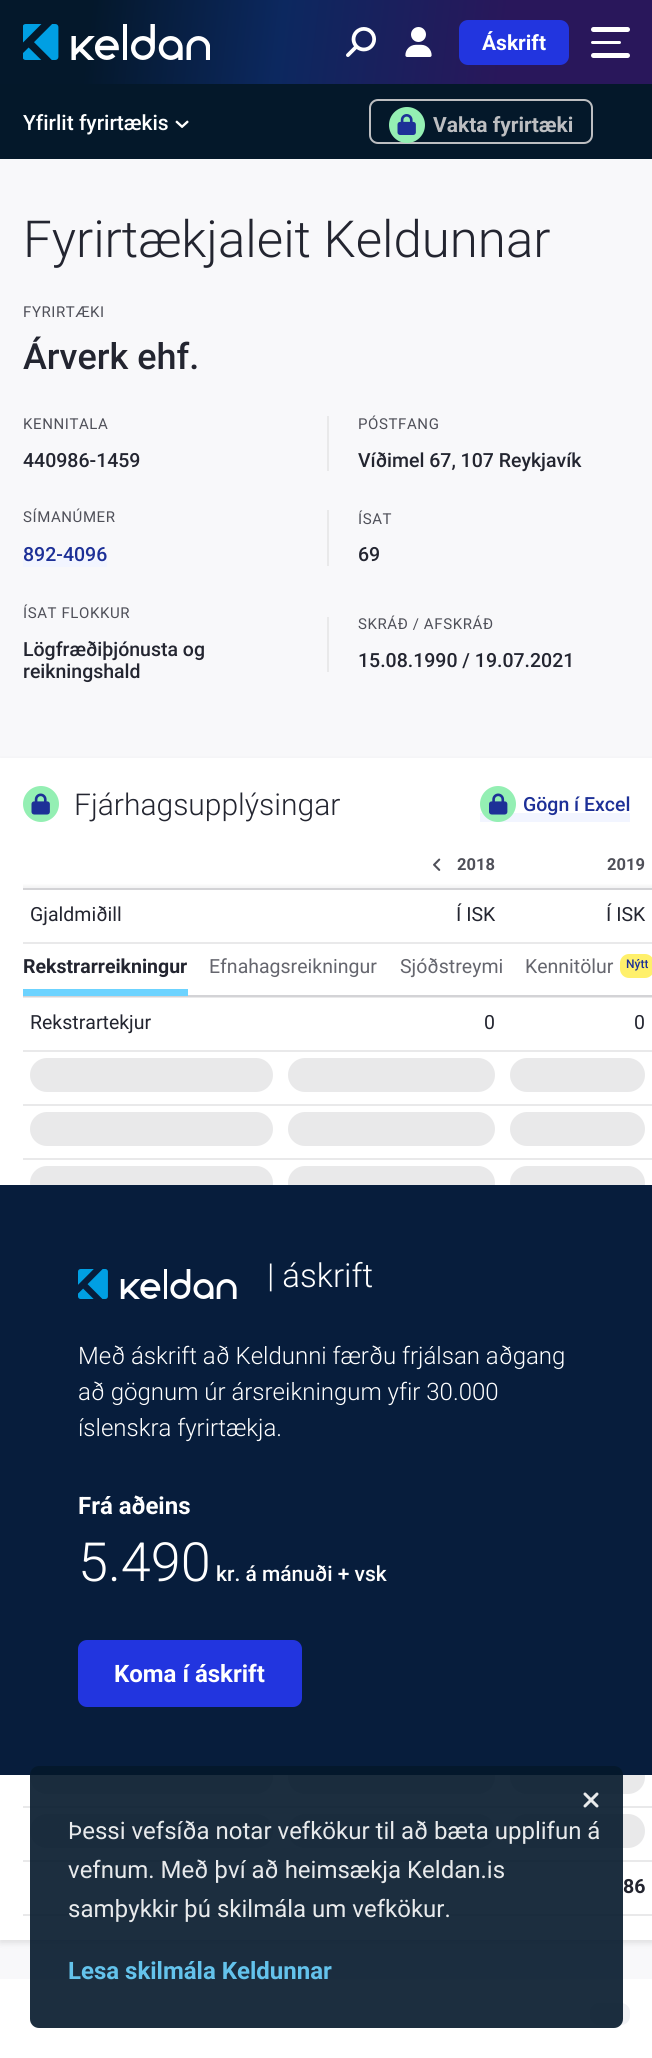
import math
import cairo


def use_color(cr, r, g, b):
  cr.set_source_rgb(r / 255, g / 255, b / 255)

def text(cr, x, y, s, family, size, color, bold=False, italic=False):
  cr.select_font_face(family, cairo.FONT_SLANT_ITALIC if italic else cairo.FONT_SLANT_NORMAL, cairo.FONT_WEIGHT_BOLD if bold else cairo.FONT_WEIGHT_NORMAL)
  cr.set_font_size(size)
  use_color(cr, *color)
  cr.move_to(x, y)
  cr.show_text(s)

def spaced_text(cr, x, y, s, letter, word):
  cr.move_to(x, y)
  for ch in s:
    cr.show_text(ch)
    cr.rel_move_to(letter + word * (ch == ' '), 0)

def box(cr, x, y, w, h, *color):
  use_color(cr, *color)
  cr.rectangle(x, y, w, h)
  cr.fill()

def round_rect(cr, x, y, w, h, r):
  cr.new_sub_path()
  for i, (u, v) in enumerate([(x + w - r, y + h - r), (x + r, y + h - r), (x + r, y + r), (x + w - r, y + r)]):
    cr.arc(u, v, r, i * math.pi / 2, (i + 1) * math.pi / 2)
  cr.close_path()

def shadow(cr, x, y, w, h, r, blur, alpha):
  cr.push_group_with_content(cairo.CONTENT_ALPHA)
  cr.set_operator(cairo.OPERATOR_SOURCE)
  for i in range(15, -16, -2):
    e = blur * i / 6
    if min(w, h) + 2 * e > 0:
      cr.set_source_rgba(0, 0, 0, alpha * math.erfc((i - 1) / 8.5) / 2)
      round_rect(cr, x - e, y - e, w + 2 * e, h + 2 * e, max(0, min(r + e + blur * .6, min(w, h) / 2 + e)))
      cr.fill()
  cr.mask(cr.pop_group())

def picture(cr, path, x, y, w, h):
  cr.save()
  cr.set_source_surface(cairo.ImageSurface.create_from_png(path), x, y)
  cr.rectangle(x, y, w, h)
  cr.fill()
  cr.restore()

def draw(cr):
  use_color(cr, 248, 248, 250)
  cr.paint()
  gradient = cairo.LinearGradient(-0.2, 1.9, 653, 82)
  gradient.add_color_stop_rgba(0.14, 0.016, 0.094, 0.169, 1)
  gradient.add_color_stop_rgba(0.43, 0.047, 0.157, 0.373, 1)
  gradient.add_color_stop_rgba(0.77, 0.161, 0.09, 0.357, 1)
  cr.set_source(gradient)
  cr.rectangle(0, 0, 652, 84)
  cr.fill()
  picture(cr, "img_01.png", 23, 24, 36, 36)
  picture(cr, "img_02.png", 71, 24, 139, 36)
  picture(cr, "img_03.png", 346, 27, 30, 30)
  picture(cr, "img_04.png", 405, 27, 27, 30)
  use_color(cr, 34, 53, 223)
  round_rect(cr, 460, 21, 108, 43, 8)
  cr.fill_preserve()
  cr.stroke()
  use_color(cr, 255, 255, 255)
  round_rect(cr, 591, 27, 39, 5, 2.5)
  cr.fill()
  round_rect(cr, 591, 41, 30, 3, 1.5)
  cr.fill()
  round_rect(cr, 591, 53, 39, 5, 2.5)
  cr.fill()
  box(cr, 0, 84, 652, 75, 4, 24, 42)
  picture(cr, "img_05.png", 175, 120, 14, 8)
  round_rect(cr, 370, 100, 222, 43, 8)
  use_color(cr, 189, 190, 193)
  cr.stroke()
  use_color(cr, 148, 239, 179)
  cr.arc(407, 125, 18, 0, 2 * math.pi)
  cr.fill()
  picture(cr, "img_06.png", 397, 114, 19, 21)
  box(cr, 327, 416, 2, 55, 233, 233, 234)
  box(cr, 23, 558, 84, 9, 242, 245, 255)
  box(cr, 327, 510, 2, 56, 233, 233, 234)
  box(cr, 327, 617, 2, 55, 233, 233, 234)
  use_color(cr, 0, 0, 0)
  shadow(cr, 0, 761, 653, 1182, 0, 3, 0.1)
  box(cr, 0, 758, 652, 1182, 255, 255, 255)
  use_color(cr, 148, 239, 179)
  cr.arc(41, 804, 18, 0, 2 * math.pi)
  cr.fill()
  picture(cr, "img_07.png", 31, 793, 19, 22)
  box(cr, 480, 813, 150, 9, 242, 245, 255)
  use_color(cr, 148, 239, 179)
  cr.arc(498, 804, 18, 0, 2 * math.pi)
  cr.fill()
  picture(cr, "img_08.png", 489, 793, 19, 22)
  picture(cr, "img_09.png", 433, 858, 8, 13)
  gradient = cairo.LinearGradient(392, 887, 392, 874)
  gradient.add_color_stop_rgba(0, 0.957, 0.957, 0.961, 1)
  gradient.add_color_stop_rgba(0.28, 1, 1, 1, 1)
  cr.set_source(gradient)
  cr.rectangle(281, 884, 222, 4)
  cr.fill()
  box(cr, 23, 888, 629, 2, 211, 211, 214)
  gradient = cairo.LinearGradient(578, 887, 578, 874)
  gradient.add_color_stop_rgba(0, 0.957, 0.957, 0.961, 1)
  gradient.add_color_stop_rgba(0.28, 1, 1, 1, 1)
  cr.set_source(gradient)
  cr.rectangle(503, 884, 149, 4)
  cr.fill()
  gradient = cairo.LinearGradient(152, 887, 152, 874)
  gradient.add_color_stop_rgba(0, 0.957, 0.957, 0.961, 1)
  gradient.add_color_stop_rgba(0.28, 1, 1, 1, 1)
  cr.set_source(gradient)
  cr.rectangle(23, 884, 258, 4)
  cr.fill()
  box(cr, 23, 942, 629, 2, 233, 233, 234)
  box(cr, 23, 997, 629, 1, 233, 233, 234)
  box(cr, 23, 995, 629, 2, 211, 211, 214)
  box(cr, 23, 989, 165, 7, 108, 211, 255)
  use_color(cr, 255, 240, 107)
  round_rect(cr, 620, 954, 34, 24, 9)
  cr.fill()
  box(cr, 23, 1050, 629, 2, 233, 233, 234)
  box(cr, 23, 1104, 629, 2, 233, 233, 234)
  round_rect(cr, 510, 1058, 135, 34, 17)
  cr.fill()
  round_rect(cr, 30, 1058, 243, 34, 17)
  cr.fill()
  round_rect(cr, 288, 1058, 207, 34, 17)
  cr.fill()
  box(cr, 23, 1158, 629, 2, 233, 233, 234)
  round_rect(cr, 510, 1112, 135, 34, 17)
  cr.fill()
  round_rect(cr, 30, 1112, 243, 34, 17)
  cr.fill()
  round_rect(cr, 288, 1112, 207, 34, 17)
  cr.fill()
  round_rect(cr, 30, 1166, 243, 34, 17)
  cr.fill()
  round_rect(cr, 288, 1166, 207, 34, 17)
  cr.fill()
  round_rect(cr, 510, 1166, 135, 34, 17)
  cr.fill()
  box(cr, 23, 1806, 629, 2, 233, 233, 234)
  round_rect(cr, 510, 1760, 135, 34, 17)
  cr.fill()
  round_rect(cr, 30, 1760, 243, 34, 17)
  cr.fill()
  round_rect(cr, 288, 1760, 207, 34, 17)
  cr.fill()
  box(cr, 23, 1860, 629, 2, 233, 233, 234)
  round_rect(cr, 510, 1814, 135, 34, 17)
  cr.fill()
  round_rect(cr, 30, 1814, 243, 34, 17)
  cr.fill()
  round_rect(cr, 288, 1814, 207, 34, 17)
  cr.fill()
  box(cr, 23, 1914, 629, 2, 233, 233, 234)
  box(cr, 0, 1185, 652, 590, 7, 29, 60)
  picture(cr, "img_10.png", 78, 1269, 30, 30)
  picture(cr, "img_11.png", 120, 1269, 117, 30)
  use_color(cr, 34, 53, 223)
  round_rect(cr, 79, 1641, 222, 65, 8)
  cr.fill_preserve()
  cr.stroke()
  box(cr, 0, 1979, 652, 79, 255, 255, 255)
  use_color(cr, 241, 242, 245)
  round_rect(cr, 590, 2003, 40, 22, 9)
  cr.fill()
  cr.set_source_rgba(0.016, 0.094, 0.165, 0.9)
  round_rect(cr, 30, 1766, 593, 262, 9)
  cr.fill()
  picture(cr, "img_12.png", 583, 1792, 16, 16)
  text(cr, 482, 50, "Áskrift", "Roboto", 21, (255, 255, 255), bold=True)
  text(cr, 23, 130, "Yfirlit fyrirtækis", "Roboto Medium", 21, (255, 255, 255))
  text(cr, 433, 132, "Vakta fyrirtæki", "Roboto", 21, (189, 190, 193), bold=True)
  text(cr, 23, 257, "Fyrirtækjaleit Keldunnar", "Roboto Light", 51, (35, 37, 48))
  cr.select_font_face("Roboto")
  cr.set_font_size(15)
  use_color(cr, 79, 80, 89)
  spaced_text(cr, 23, 317, "FYRIRTÆKI", 0.6, 0)
  text(cr, 23, 369, "Árverk ehf.", "Roboto Medium", 36, (35, 37, 48))
  cr.select_font_face("Roboto")
  cr.set_font_size(15)
  use_color(cr, 79, 80, 89)
  spaced_text(cr, 23, 429, "KENNITALA", 0.6, 0)
  text(cr, 23, 467, "440986-1459", "Roboto Medium", 19.5, (35, 37, 48))
  cr.select_font_face("Roboto")
  cr.set_font_size(15)
  use_color(cr, 79, 80, 89)
  spaced_text(cr, 358, 429, "PÓSTFANG", 0.6, 0)
  text(cr, 358, 467, "Víðimel 67, 107 Reykjavík", "Roboto Medium", 19.5, (35, 37, 48))
  cr.select_font_face("Roboto")
  cr.set_font_size(15)
  use_color(cr, 79, 80, 89)
  spaced_text(cr, 23, 522, "SÍMANÚMER", 0.6, 0)
  text(cr, 23, 561, "892-4096", "Roboto Medium", 19.5, (29, 48, 151))
  cr.select_font_face("Roboto")
  cr.set_font_size(15)
  use_color(cr, 79, 80, 89)
  spaced_text(cr, 358, 524, "ÍSAT", 0.6, 0)
  text(cr, 358, 561, "69", "Roboto Medium", 19.5, (35, 37, 48))
  cr.select_font_face("Roboto")
  cr.set_font_size(15)
  use_color(cr, 79, 80, 89)
  spaced_text(cr, 23, 618, "ÍSAT FLOKKUR", 0.6, 0)
  text(cr, 23, 656, "Lögfræðiþjónusta og", "Roboto Medium", 19.5, (35, 37, 48))
  text(cr, 23, 678, "reikningshald", "Roboto Medium", 19.5, (35, 37, 48))
  cr.select_font_face("Roboto")
  cr.set_font_size(15)
  use_color(cr, 79, 80, 89)
  spaced_text(cr, 358, 629, "SKRÁÐ / AFSKRÁÐ", 0.6, 0)
  text(cr, 358, 667, "15.08.1990 / 19.07.2021", "Roboto Medium", 19.5, (35, 37, 48))
  text(cr, 74, 815, "Fjárhagsupplýsingar", "Roboto Light", 30, (35, 37, 48))
  text(cr, 523, 811, "Gögn í Excel", "Roboto Medium", 19.5, (29, 48, 151))
  text(cr, 457, 870, "2018", "Roboto", 16.5, (79, 80, 89), bold=True)
  text(cr, 607, 870, "2019", "Roboto", 16.5, (79, 80, 89), bold=True)
  text(cr, 30, 921, "Gjaldmiðill", "Roboto", 19.5, (35, 37, 48))
  text(cr, 456, 921, "Í ISK", "Roboto", 19.5, (35, 37, 48))
  text(cr, 606, 921, "Í ISK", "Roboto", 19.5, (35, 37, 48))
  text(cr, 23, 973, "Rekstrarreikningur", "Roboto", 19.5, (35, 37, 48), bold=True)
  text(cr, 209, 973, "Efnahagsreikningur", "Roboto", 19.5, (101, 102, 110))
  text(cr, 400, 973, "Sjóðstreymi", "Roboto", 19.5, (101, 102, 110))
  text(cr, 525, 973, "Kennitölur", "Roboto", 19.5, (101, 102, 110))
  text(cr, 626, 968, "Nýtt", "Roboto Medium", 12, (29, 48, 151))
  text(cr, 30, 1029, "Rekstrartekjur", "Roboto", 19.5, (35, 37, 48))
  text(cr, 484, 1029, "0", "Roboto", 19.5, (35, 37, 48))
  text(cr, 634, 1029, "0", "Roboto", 19.5, (35, 37, 48))
  text(cr, 623, 1893, "86", "Roboto", 19.5, (35, 37, 48), bold=True)
  text(cr, 267, 1287, "| áskrift", "Roboto Light", 33, (255, 255, 255))
  text(cr, 78, 1364, "Með áskrift að Keldunni færðu frjálsan aðgang", "Roboto Light", 24, (255, 255, 255))
  text(cr, 78, 1400, "að gögnum úr ársreikningum yfir 30.000", "Roboto Light", 24, (255, 255, 255))
  text(cr, 78, 1436, "íslenskra fyrirtækja.", "Roboto Light", 24, (255, 255, 255))
  text(cr, 78, 1514, "Frá aðeins", "Roboto", 24, (255, 255, 255), bold=True)
  text(cr, 78, 1581, "5.490", "Roboto Light", 54, (255, 255, 255))
  text(cr, 216, 1581, "kr. á mánuði + vsk", "Roboto Medium", 21, (255, 255, 255))
  text(cr, 114, 1682, "Koma í áskrift", "Roboto", 24, (255, 255, 255), bold=True)
  text(cr, 68, 1839, "Þessi vefsíða notar vefkökur til að bæta upplifun á", "Roboto", 24, (232, 234, 236))
  text(cr, 68, 1878, "vefnum. Með því að heimsækja Keldan.is", "Roboto", 24, (232, 234, 236))
  text(cr, 68, 1917, "samþykkir þú skilmála um vefkökur.", "Roboto", 24, (232, 234, 236))
  text(cr, 68, 1979, "Lesa skilmála Keldunnar", "Roboto", 24, (100, 195, 236), bold=True)


surface = cairo.ImageSurface(cairo.FORMAT_RGB24, 652, 2058)
cr = cairo.Context(surface)
options = cairo.FontOptions()
options.set_hint_metrics(cairo.HINT_METRICS_OFF)
options.set_hint_style(cairo.HINT_STYLE_NONE)
cr.set_font_options(options)
cr.set_miter_limit(4)
draw(cr)
surface.write_to_png("out.png")
